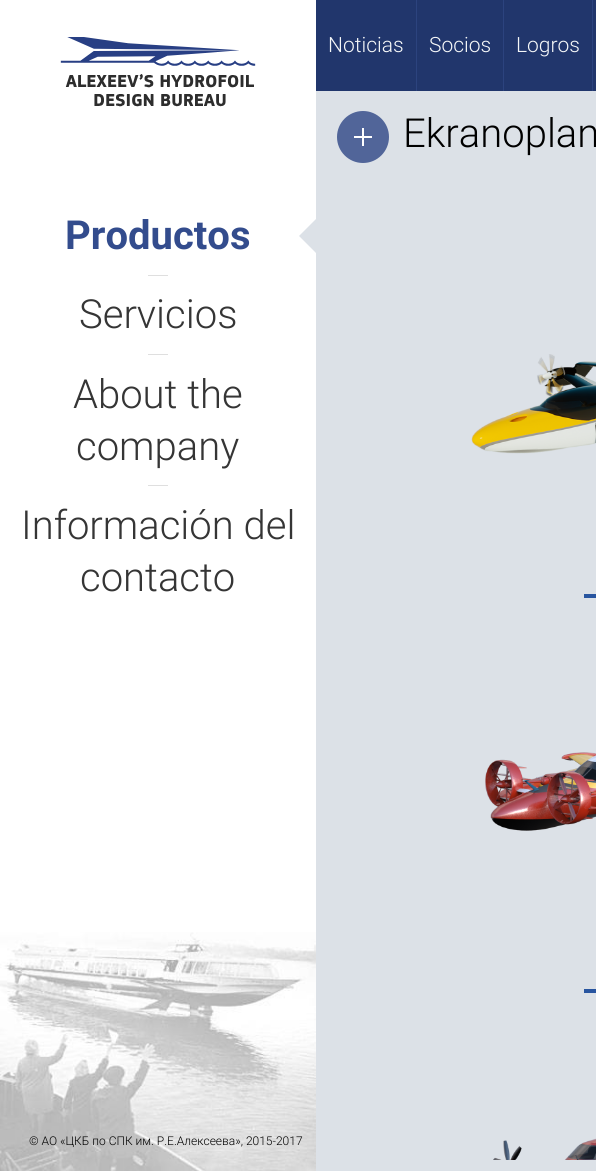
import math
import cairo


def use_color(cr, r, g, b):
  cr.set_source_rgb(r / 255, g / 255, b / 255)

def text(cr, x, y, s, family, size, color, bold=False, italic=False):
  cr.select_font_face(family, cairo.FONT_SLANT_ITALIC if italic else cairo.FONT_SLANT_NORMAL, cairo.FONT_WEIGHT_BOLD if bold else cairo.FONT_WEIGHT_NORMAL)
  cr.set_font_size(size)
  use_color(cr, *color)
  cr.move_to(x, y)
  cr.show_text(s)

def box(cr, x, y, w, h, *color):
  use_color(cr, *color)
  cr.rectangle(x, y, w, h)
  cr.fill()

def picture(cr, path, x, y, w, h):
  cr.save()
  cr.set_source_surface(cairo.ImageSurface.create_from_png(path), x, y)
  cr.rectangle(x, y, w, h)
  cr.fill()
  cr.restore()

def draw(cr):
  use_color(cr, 255, 255, 255)
  cr.paint()
  box(cr, 316, 0, 280, 91, 33, 54, 108)
  box(cr, 416, 0, 1, 91, 44, 67, 126)
  box(cr, 503, 0, 1, 91, 44, 67, 126)
  box(cr, 592, 0, 1, 91, 44, 67, 126)
  box(cr, 316, 91, 280, 1080, 220, 225, 231)
  use_color(cr, 81, 101, 153)
  cr.arc(363, 137, 25, 0, 2 * math.pi)
  cr.fill_preserve()
  cr.stroke()
  box(cr, 354, 136, 18, 2, 255, 255, 255)
  box(cr, 362, 128, 2, 18, 255, 255, 255)
  picture(cr, "img_01.png", 471, 354, 125, 100)
  box(cr, 584, 594, 12, 4, 40, 85, 160)
  picture(cr, "img_02.png", 485, 752, 111, 79)
  box(cr, 584, 989, 12, 4, 40, 85, 160)
  picture(cr, "img_03.png", 493, 1138, 103, 22)
  picture(cr, "img_04.png", 0, 932, 316, 239)
  picture(cr, "img_05.png", 60, 37, 196, 70)
  use_color(cr, 220, 225, 231)
  cr.new_path()
  cr.move_to(316, 219)
  cr.line_to(316, 253)
  cr.line_to(299, 236)
  cr.close_path()
  cr.fill()
  box(cr, 148, 275, 20, 1, 223, 223, 223)
  box(cr, 148, 354, 20, 1, 223, 223, 223)
  box(cr, 148, 485, 20, 1, 223, 223, 223)
  text(cr, 328, 52, "Noticias", "Roboto Light", 21, (245, 247, 248))
  text(cr, 429, 52, "Socios", "Roboto Light", 21, (245, 247, 248))
  text(cr, 516, 52, "Logros", "Roboto Light", 21, (245, 247, 248))
  text(cr, 403, 147, "Ekranoplan", "Roboto Light", 40, (0, 0, 0))
  text(cr, 65, 249, "Productos", "Roboto", 40, (51, 76, 141), bold=True)
  text(cr, 79, 328, "Servicios", "Roboto Light", 40, (53, 53, 53))
  text(cr, 73, 408, "About the", "Roboto Light", 40, (53, 53, 53))
  text(cr, 76, 460, "company", "Roboto Light", 40, (53, 53, 53))
  text(cr, 21, 539, "Información del", "Roboto Light", 40, (53, 53, 53))
  text(cr, 80, 591, "contacto", "Roboto Light", 40, (53, 53, 53))
  text(cr, 29, 1145, "© АО «ЦКБ по СПК им. Р.Е.Алексеева», 2015-2017", "Roboto Light", 12, (0, 0, 0))


surface = cairo.ImageSurface(cairo.FORMAT_RGB24, 596, 1171)
cr = cairo.Context(surface)
options = cairo.FontOptions()
options.set_hint_metrics(cairo.HINT_METRICS_OFF)
options.set_hint_style(cairo.HINT_STYLE_NONE)
cr.set_font_options(options)
cr.set_miter_limit(4)
draw(cr)
surface.write_to_png("out.png")
